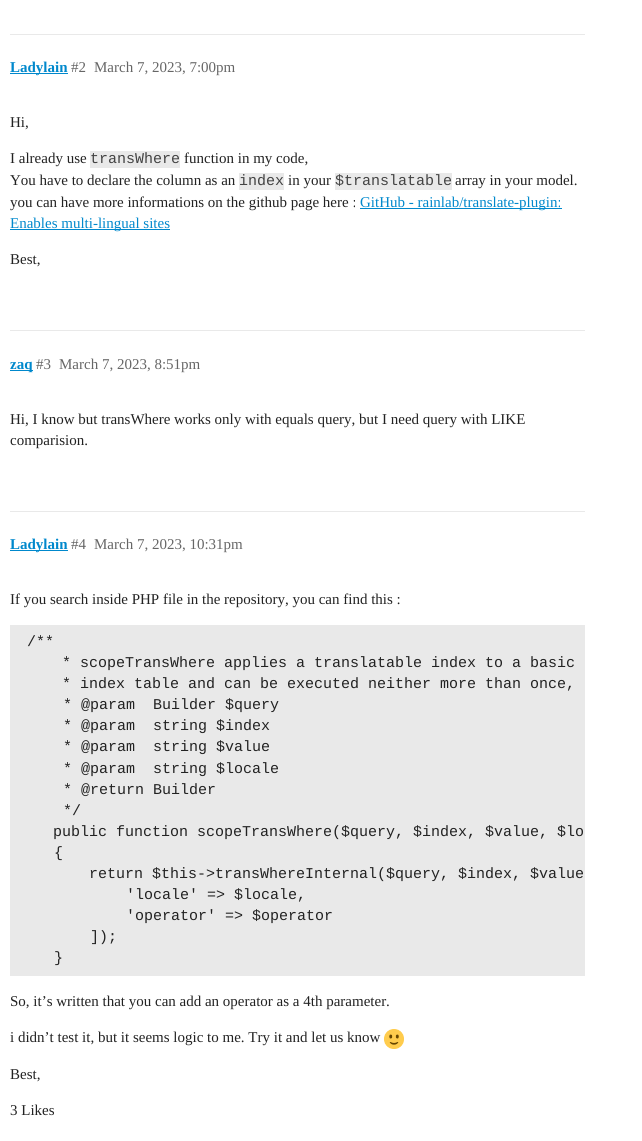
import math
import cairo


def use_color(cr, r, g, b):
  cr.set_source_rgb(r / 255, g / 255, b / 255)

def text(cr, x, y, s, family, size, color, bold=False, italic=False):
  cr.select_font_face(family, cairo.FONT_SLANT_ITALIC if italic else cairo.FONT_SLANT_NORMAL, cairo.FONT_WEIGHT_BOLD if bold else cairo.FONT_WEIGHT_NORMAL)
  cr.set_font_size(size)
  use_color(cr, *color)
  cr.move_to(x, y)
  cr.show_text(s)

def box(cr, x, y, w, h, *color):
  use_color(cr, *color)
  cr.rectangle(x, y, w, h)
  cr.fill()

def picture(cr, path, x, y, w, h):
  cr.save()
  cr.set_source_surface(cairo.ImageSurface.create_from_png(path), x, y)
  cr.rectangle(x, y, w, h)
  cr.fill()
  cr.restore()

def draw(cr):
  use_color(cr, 255, 255, 255)
  cr.paint()
  box(cr, 10, 34, 575, 1, 233, 233, 233)
  box(cr, 10, 73, 58, 1, 0, 136, 204)
  box(cr, 90, 151, 90, 17, 233, 233, 233)
  box(cr, 239, 173, 45, 17, 233, 233, 233)
  box(cr, 335, 173, 117, 17, 233, 233, 233)
  box(cr, 360, 208, 202, 1, 0, 136, 204)
  box(cr, 10, 229, 160, 1, 0, 136, 204)
  box(cr, 10, 330, 575, 1, 233, 233, 233)
  box(cr, 10, 370, 23, 1, 0, 136, 204)
  box(cr, 10, 511, 575, 1, 233, 233, 233)
  box(cr, 10, 550, 58, 1, 0, 136, 204)
  box(cr, 10, 625, 575, 351, 233, 233, 233)
  picture(cr, "img_01.png", 384, 1029, 20, 20)
  text(cr, 10, 72, "Ladylain", "Liberation Serif", 15, (0, 136, 204), bold=True)
  text(cr, 71, 72, "#2", "Liberation Serif", 15, (102, 102, 102))
  text(cr, 94, 72, "March 7, 2023, 7:00pm", "Liberation Serif", 15, (102, 102, 102))
  text(cr, 10, 127, "Hi,", "Liberation Serif", 15, (34, 34, 34))
  text(cr, 10, 163, "I already use", "Liberation Serif", 15, (34, 34, 34))
  text(cr, 90, 163, "transWhere", "Liberation Mono", 15, (67, 67, 67))
  text(cr, 184, 163, "function in my code,", "Liberation Serif", 15, (34, 34, 34))
  text(cr, 10, 185, "You have to declare the column as an", "Liberation Serif", 15, (34, 34, 34))
  text(cr, 239, 185, "index", "Liberation Mono", 15, (67, 67, 67))
  text(cr, 288, 185, "in your", "Liberation Serif", 15, (34, 34, 34))
  text(cr, 335, 185, "$translatable", "Liberation Mono", 15, (67, 67, 67))
  text(cr, 455, 185, "array in your model.", "Liberation Serif", 15, (34, 34, 34))
  text(cr, 10, 207, "you can have more informations on the github page here :", "Liberation Serif", 15, (34, 34, 34))
  text(cr, 360, 207, "GitHub - rainlab/translate-plugin:", "Liberation Serif", 15, (0, 136, 204))
  text(cr, 10, 228, "Enables multi-lingual sites", "Liberation Serif", 15, (0, 136, 204))
  text(cr, 10, 264, "Best,", "Liberation Serif", 15, (34, 34, 34))
  text(cr, 10, 369, "zaq", "Liberation Serif", 15, (0, 136, 204), bold=True)
  text(cr, 36, 369, "#3", "Liberation Serif", 15, (102, 102, 102))
  text(cr, 59, 369, "March 7, 2023, 8:51pm", "Liberation Serif", 15, (102, 102, 102))
  text(cr, 10, 424, "Hi, I know but transWhere works only with equals query, but I need query with LIKE", "Liberation Serif", 15, (34, 34, 34))
  text(cr, 10, 445, "comparision.", "Liberation Serif", 15, (34, 34, 34))
  text(cr, 10, 549, "Ladylain", "Liberation Serif", 15, (0, 136, 204), bold=True)
  text(cr, 71, 549, "#4", "Liberation Serif", 15, (102, 102, 102))
  text(cr, 94, 549, "March 7, 2023, 10:31pm", "Liberation Serif", 15, (102, 102, 102))
  text(cr, 10, 604, "If you search inside PHP file in the repository, you can find this :", "Liberation Serif", 15, (34, 34, 34))
  text(cr, 27, 646, "/**", "Liberation Mono", 15, (34, 34, 34))
  text(cr, 62, 667, "* scopeTransWhere applies a translatable index to a basic", "Liberation Mono", 15, (34, 34, 34))
  text(cr, 62, 688, "* index table and can be executed neither more than once,", "Liberation Mono", 15, (34, 34, 34))
  text(cr, 63, 709, "* @param  Builder $query", "Liberation Mono", 15, (34, 34, 34))
  text(cr, 63, 730, "* @param  string $index", "Liberation Mono", 15, (34, 34, 34))
  text(cr, 63, 751, "* @param  string $value", "Liberation Mono", 15, (34, 34, 34))
  text(cr, 63, 773, "* @param  string $locale", "Liberation Mono", 15, (34, 34, 34))
  text(cr, 63, 794, "* @return Builder", "Liberation Mono", 15, (34, 34, 34))
  text(cr, 63, 815, "*/", "Liberation Mono", 15, (34, 34, 34))
  text(cr, 53, 836, "public function scopeTransWhere($query, $index, $value, $lo", "Liberation Mono", 15, (34, 34, 34))
  text(cr, 54, 857, "{", "Liberation Mono", 15, (34, 34, 34))
  text(cr, 89, 878, "return $this->transWhereInternal($query, $index, $value", "Liberation Mono", 15, (34, 34, 34))
  text(cr, 126, 899, "'locale' => $locale,", "Liberation Mono", 15, (34, 34, 34))
  text(cr, 126, 920, "'operator' => $operator", "Liberation Mono", 15, (34, 34, 34))
  text(cr, 90, 941, "]);", "Liberation Mono", 15, (34, 34, 34))
  text(cr, 54, 962, "}", "Liberation Mono", 15, (34, 34, 34))
  text(cr, 10, 1006, "So, it’s written that you can add an operator as a 4th parameter.", "Liberation Serif", 15, (34, 34, 34))
  text(cr, 10, 1042, "i didn’t test it, but it seems logic to me. Try it and let us know", "Liberation Serif", 15, (34, 34, 34))
  text(cr, 10, 1079, "Best,", "Liberation Serif", 15, (34, 34, 34))
  text(cr, 10, 1115, "3 Likes", "Liberation Serif", 15, (34, 34, 34))


surface = cairo.ImageSurface(cairo.FORMAT_RGB24, 642, 1141)
cr = cairo.Context(surface)
options = cairo.FontOptions()
options.set_hint_metrics(cairo.HINT_METRICS_OFF)
options.set_hint_style(cairo.HINT_STYLE_NONE)
cr.set_font_options(options)
cr.set_miter_limit(4)
draw(cr)
surface.write_to_png("out.png")
